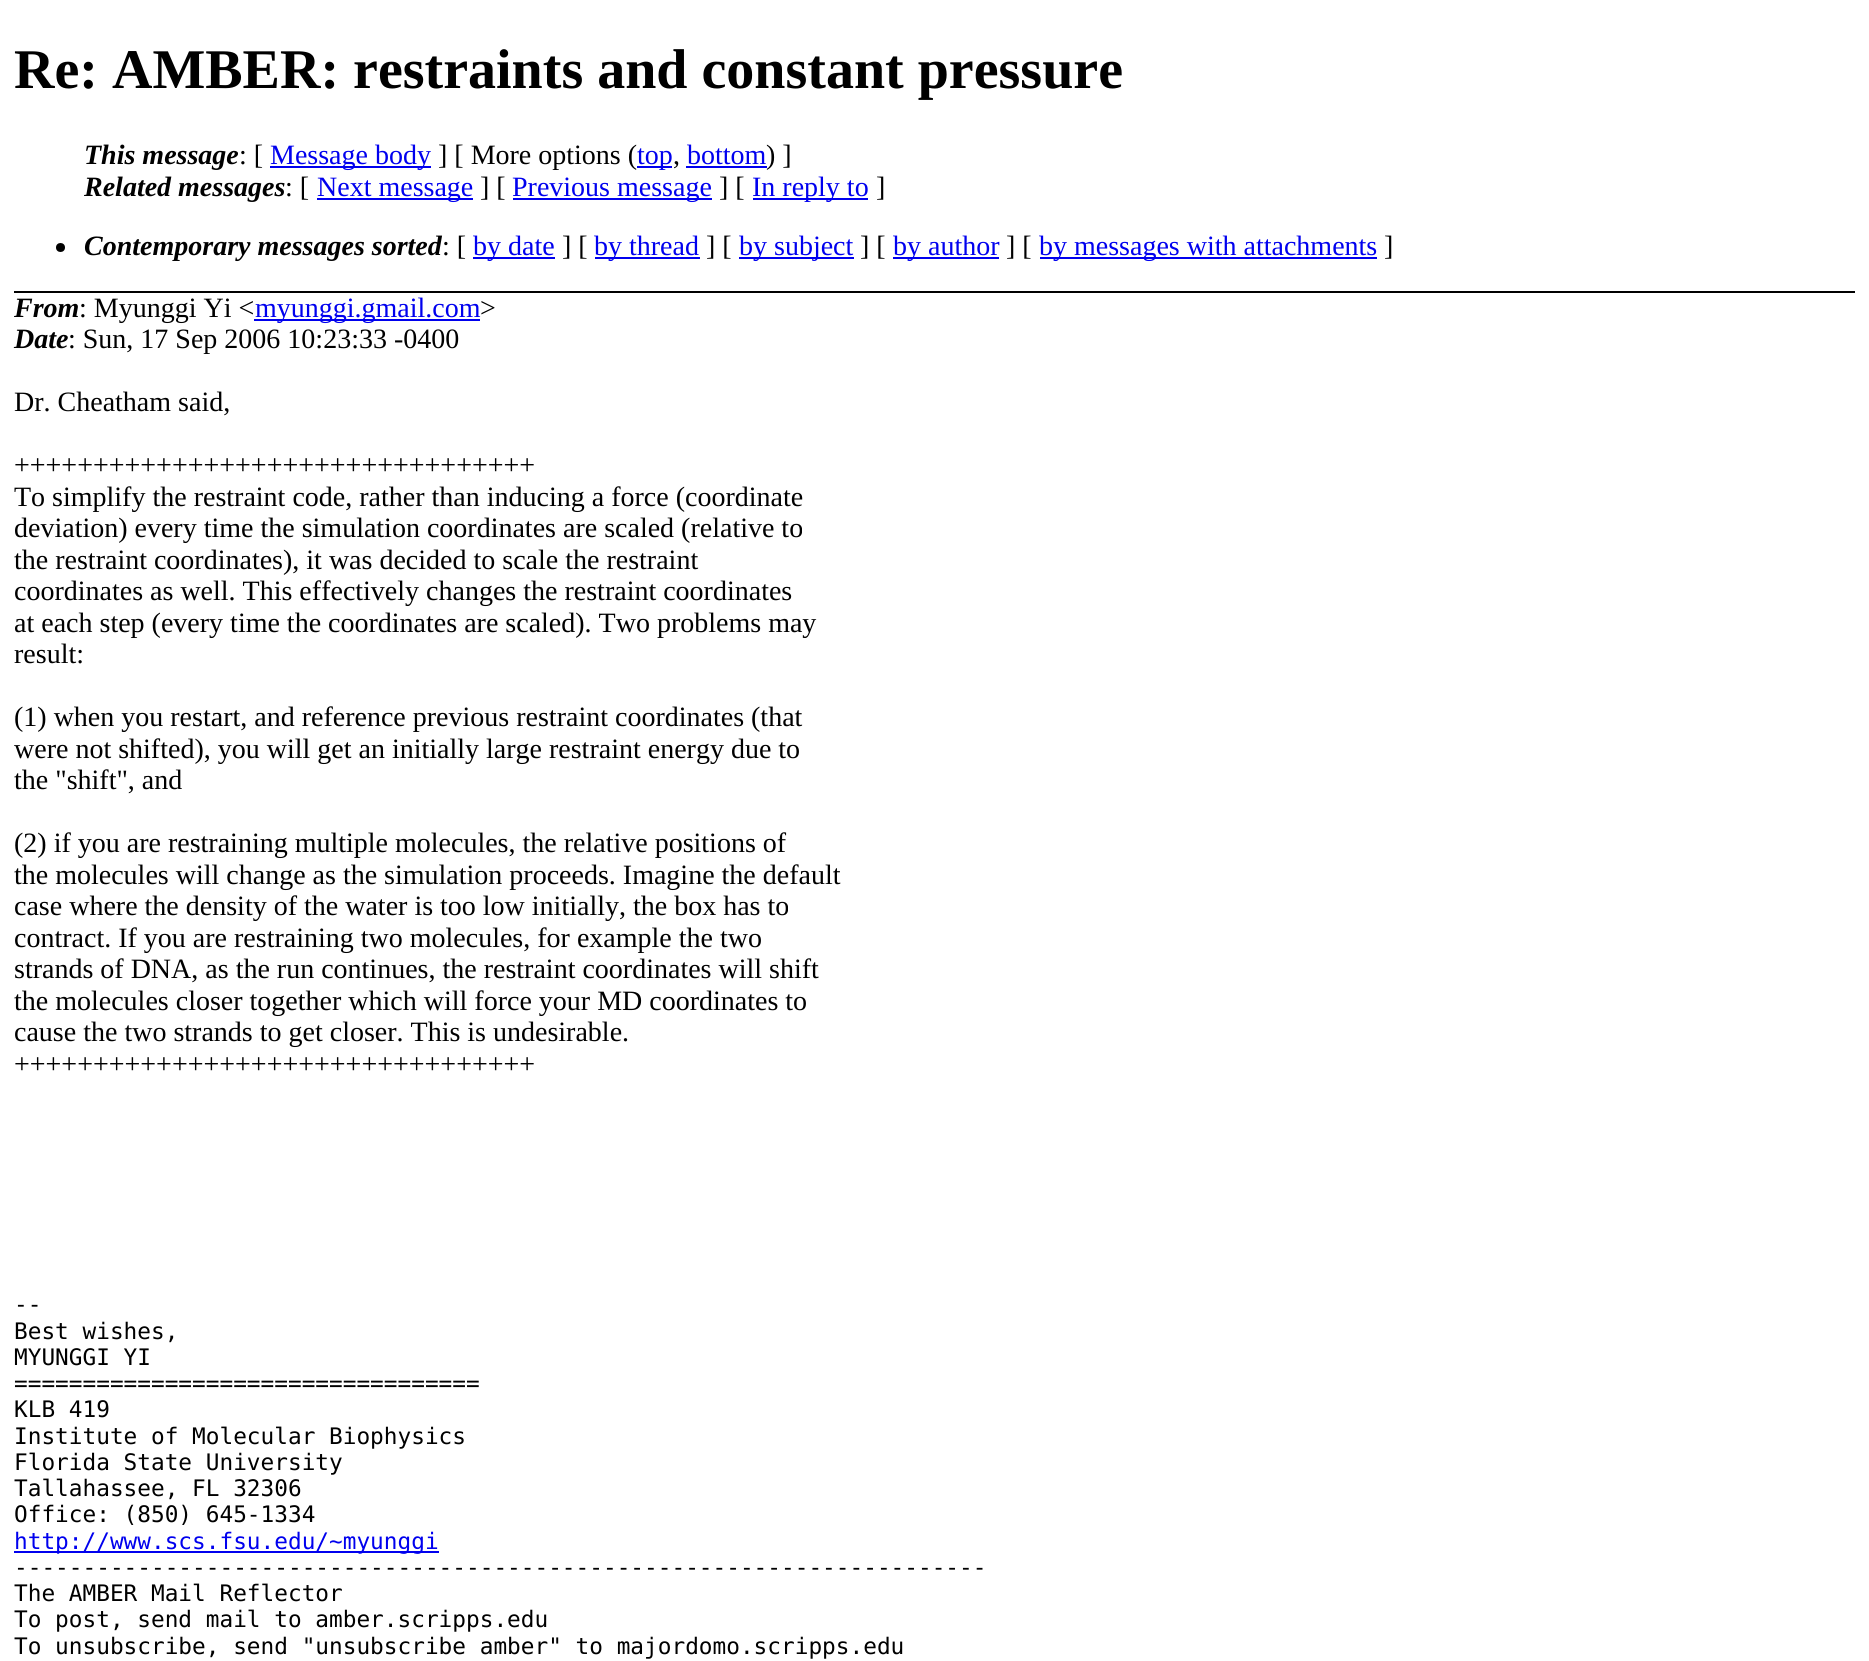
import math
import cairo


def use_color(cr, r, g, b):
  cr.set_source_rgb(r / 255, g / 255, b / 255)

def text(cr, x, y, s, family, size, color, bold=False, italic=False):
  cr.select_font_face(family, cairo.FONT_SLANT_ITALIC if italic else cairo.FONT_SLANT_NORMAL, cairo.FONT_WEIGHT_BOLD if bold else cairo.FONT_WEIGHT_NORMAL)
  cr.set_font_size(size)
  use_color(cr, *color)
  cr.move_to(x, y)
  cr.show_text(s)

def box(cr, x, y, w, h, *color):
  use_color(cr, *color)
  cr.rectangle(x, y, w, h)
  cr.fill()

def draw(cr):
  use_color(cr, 255, 255, 255)
  cr.paint()
  box(cr, 14, 291, 1841, 2, 0, 0, 0)
  box(cr, 270, 166, 161, 2, 0, 0, 238)
  box(cr, 637, 166, 35, 2, 0, 0, 238)
  box(cr, 686, 166, 81, 2, 0, 0, 238)
  box(cr, 317, 198, 156, 2, 0, 0, 238)
  box(cr, 513, 198, 199, 2, 0, 0, 238)
  box(cr, 753, 198, 115, 2, 0, 0, 238)
  use_color(cr, 0, 0, 0)
  cr.arc(60.5, 247.5, 4.5, 0, 2 * math.pi)
  cr.fill()
  box(cr, 473, 257, 82, 2, 0, 0, 238)
  box(cr, 595, 257, 105, 2, 0, 0, 238)
  box(cr, 739, 257, 115, 2, 0, 0, 238)
  box(cr, 893, 257, 106, 2, 0, 0, 238)
  box(cr, 1040, 257, 337, 2, 0, 0, 238)
  box(cr, 254, 319, 226, 2, 0, 0, 238)
  box(cr, 14, 1551, 425, 2, 0, 0, 238)
  text(cr, 14, 88, "Re: AMBER: restraints and constant pressure", "Liberation Serif", 56, (0, 0, 0), bold=True)
  text(cr, 84, 164, "This message", "Liberation Serif", 28, (0, 0, 0), bold=True, italic=True)
  text(cr, 239, 164, ": [", "Liberation Serif", 28, (0, 0, 0))
  text(cr, 270, 164, "Message body", "Liberation Serif", 28, (0, 0, 238))
  text(cr, 438, 164, "] [ More options (", "Liberation Serif", 28, (0, 0, 0))
  text(cr, 637, 164, "top", "Liberation Serif", 28, (0, 0, 238))
  text(cr, 673, 164, ",", "Liberation Serif", 28, (0, 0, 0))
  text(cr, 687, 164, "bottom", "Liberation Serif", 28, (0, 0, 238))
  text(cr, 766, 164, ") ]", "Liberation Serif", 28, (0, 0, 0))
  text(cr, 84, 196, "Related messages", "Liberation Serif", 28, (0, 0, 0), bold=True, italic=True)
  text(cr, 285, 196, ": [", "Liberation Serif", 28, (0, 0, 0))
  text(cr, 317, 196, "Next message", "Liberation Serif", 28, (0, 0, 238))
  text(cr, 480, 196, "] [", "Liberation Serif", 28, (0, 0, 0))
  text(cr, 512, 196, "Previous message", "Liberation Serif", 28, (0, 0, 238))
  text(cr, 719, 196, "] [", "Liberation Serif", 28, (0, 0, 0))
  text(cr, 752, 196, "In reply to", "Liberation Serif", 28, (0, 0, 238))
  text(cr, 876, 196, "]", "Liberation Serif", 28, (0, 0, 0))
  text(cr, 84, 255, "Contemporary messages sorted", "Liberation Serif", 28, (0, 0, 0), bold=True, italic=True)
  text(cr, 442, 255, ": [", "Liberation Serif", 28, (0, 0, 0))
  text(cr, 473, 255, "by date", "Liberation Serif", 28, (0, 0, 238))
  text(cr, 562, 255, "] [", "Liberation Serif", 28, (0, 0, 0))
  text(cr, 594, 255, "by thread", "Liberation Serif", 28, (0, 0, 238))
  text(cr, 706, 255, "] [", "Liberation Serif", 28, (0, 0, 0))
  text(cr, 739, 255, "by subject", "Liberation Serif", 28, (0, 0, 238))
  text(cr, 860, 255, "] [", "Liberation Serif", 28, (0, 0, 0))
  text(cr, 893, 255, "by author", "Liberation Serif", 28, (0, 0, 238))
  text(cr, 1006, 255, "] [", "Liberation Serif", 28, (0, 0, 0))
  text(cr, 1039, 255, "by messages with attachments", "Liberation Serif", 28, (0, 0, 238))
  text(cr, 1384, 255, "]", "Liberation Serif", 28, (0, 0, 0))
  text(cr, 14, 317, "From", "Liberation Serif", 28, (0, 0, 0), bold=True, italic=True)
  text(cr, 79, 317, ": Myunggi Yi <", "Liberation Serif", 28, (0, 0, 0))
  text(cr, 255, 317, "myunggi.gmail.com", "Liberation Serif", 28, (0, 0, 238))
  text(cr, 480, 317, ">", "Liberation Serif", 28, (0, 0, 0))
  text(cr, 14, 348, "Date", "Liberation Serif", 28, (0, 0, 0), bold=True, italic=True)
  text(cr, 68, 348, ": Sun, 17 Sep 2006 10:23:33 -0400", "Liberation Serif", 28, (0, 0, 0))
  text(cr, 14, 411, "Dr. Cheatham said,", "Liberation Serif", 28, (0, 0, 0))
  text(cr, 14, 474, "+++++++++++++++++++++++++++++++++", "Liberation Serif", 28, (0, 0, 0))
  text(cr, 14, 506, "To simplify the restraint code, rather than inducing a force (coordinate", "Liberation Serif", 28, (0, 0, 0))
  text(cr, 14, 537, "deviation) every time the simulation coordinates are scaled (relative to", "Liberation Serif", 28, (0, 0, 0))
  text(cr, 14, 569, "the restraint coordinates), it was decided to scale the restraint", "Liberation Serif", 28, (0, 0, 0))
  text(cr, 14, 600, "coordinates as well. This effectively changes the restraint coordinates", "Liberation Serif", 28, (0, 0, 0))
  text(cr, 14, 632, "at each step (every time the coordinates are scaled). Two problems may", "Liberation Serif", 28, (0, 0, 0))
  text(cr, 14, 663, "result:", "Liberation Serif", 28, (0, 0, 0))
  text(cr, 14, 726, "(1) when you restart, and reference previous restraint coordinates (that", "Liberation Serif", 28, (0, 0, 0))
  text(cr, 14, 758, "were not shifted), you will get an initially large restraint energy due to", "Liberation Serif", 28, (0, 0, 0))
  text(cr, 14, 789, "the \"shift\", and", "Liberation Serif", 28, (0, 0, 0))
  text(cr, 14, 852, "(2) if you are restraining multiple molecules, the relative positions of", "Liberation Serif", 28, (0, 0, 0))
  text(cr, 14, 884, "the molecules will change as the simulation proceeds. Imagine the default", "Liberation Serif", 28, (0, 0, 0))
  text(cr, 14, 915, "case where the density of the water is too low initially, the box has to", "Liberation Serif", 28, (0, 0, 0))
  text(cr, 14, 947, "contract. If you are restraining two molecules, for example the two", "Liberation Serif", 28, (0, 0, 0))
  text(cr, 14, 978, "strands of DNA, as the run continues, the restraint coordinates will shift", "Liberation Serif", 28, (0, 0, 0))
  text(cr, 14, 1010, "the molecules closer together which will force your MD coordinates to", "Liberation Serif", 28, (0, 0, 0))
  text(cr, 14, 1041, "cause the two strands to get closer. This is undesirable.", "Liberation Serif", 28, (0, 0, 0))
  text(cr, 14, 1073, "+++++++++++++++++++++++++++++++++", "Liberation Serif", 28, (0, 0, 0))
  text(cr, 14, 1312, "--", "DejaVu Sans Mono", 22.75, (0, 0, 0))
  text(cr, 14, 1339, "Best wishes,", "DejaVu Sans Mono", 22.75, (0, 0, 0))
  text(cr, 14, 1365, "MYUNGGI YI", "DejaVu Sans Mono", 22.75, (0, 0, 0))
  text(cr, 14, 1391, "==================================", "DejaVu Sans Mono", 22.75, (0, 0, 0))
  text(cr, 14, 1417, "KLB 419", "DejaVu Sans Mono", 22.75, (0, 0, 0))
  text(cr, 14, 1444, "Institute of Molecular Biophysics", "DejaVu Sans Mono", 22.75, (0, 0, 0))
  text(cr, 14, 1470, "Florida State University", "DejaVu Sans Mono", 22.75, (0, 0, 0))
  text(cr, 14, 1496, "Tallahassee, FL 32306", "DejaVu Sans Mono", 22.75, (0, 0, 0))
  text(cr, 14, 1522, "Office: (850) 645-1334", "DejaVu Sans Mono", 22.75, (0, 0, 0))
  text(cr, 14, 1549, "http://www.scs.fsu.edu/~myunggi", "DejaVu Sans Mono", 22.75, (0, 0, 238))
  text(cr, 14, 1575, "-----------------------------------------------------------------------", "DejaVu Sans Mono", 22.75, (0, 0, 0))
  text(cr, 14, 1601, "The AMBER Mail Reflector", "DejaVu Sans Mono", 22.75, (0, 0, 0))
  text(cr, 14, 1627, "To post, send mail to amber.scripps.edu", "DejaVu Sans Mono", 22.75, (0, 0, 0))
  text(cr, 14, 1654, "To unsubscribe, send \"unsubscribe amber\" to majordomo.scripps.edu", "DejaVu Sans Mono", 22.75, (0, 0, 0))


surface = cairo.ImageSurface(cairo.FORMAT_RGB24, 1869, 1661)
cr = cairo.Context(surface)
options = cairo.FontOptions()
options.set_hint_metrics(cairo.HINT_METRICS_OFF)
options.set_hint_style(cairo.HINT_STYLE_NONE)
cr.set_font_options(options)
cr.set_miter_limit(4)
draw(cr)
surface.write_to_png("out.png")
